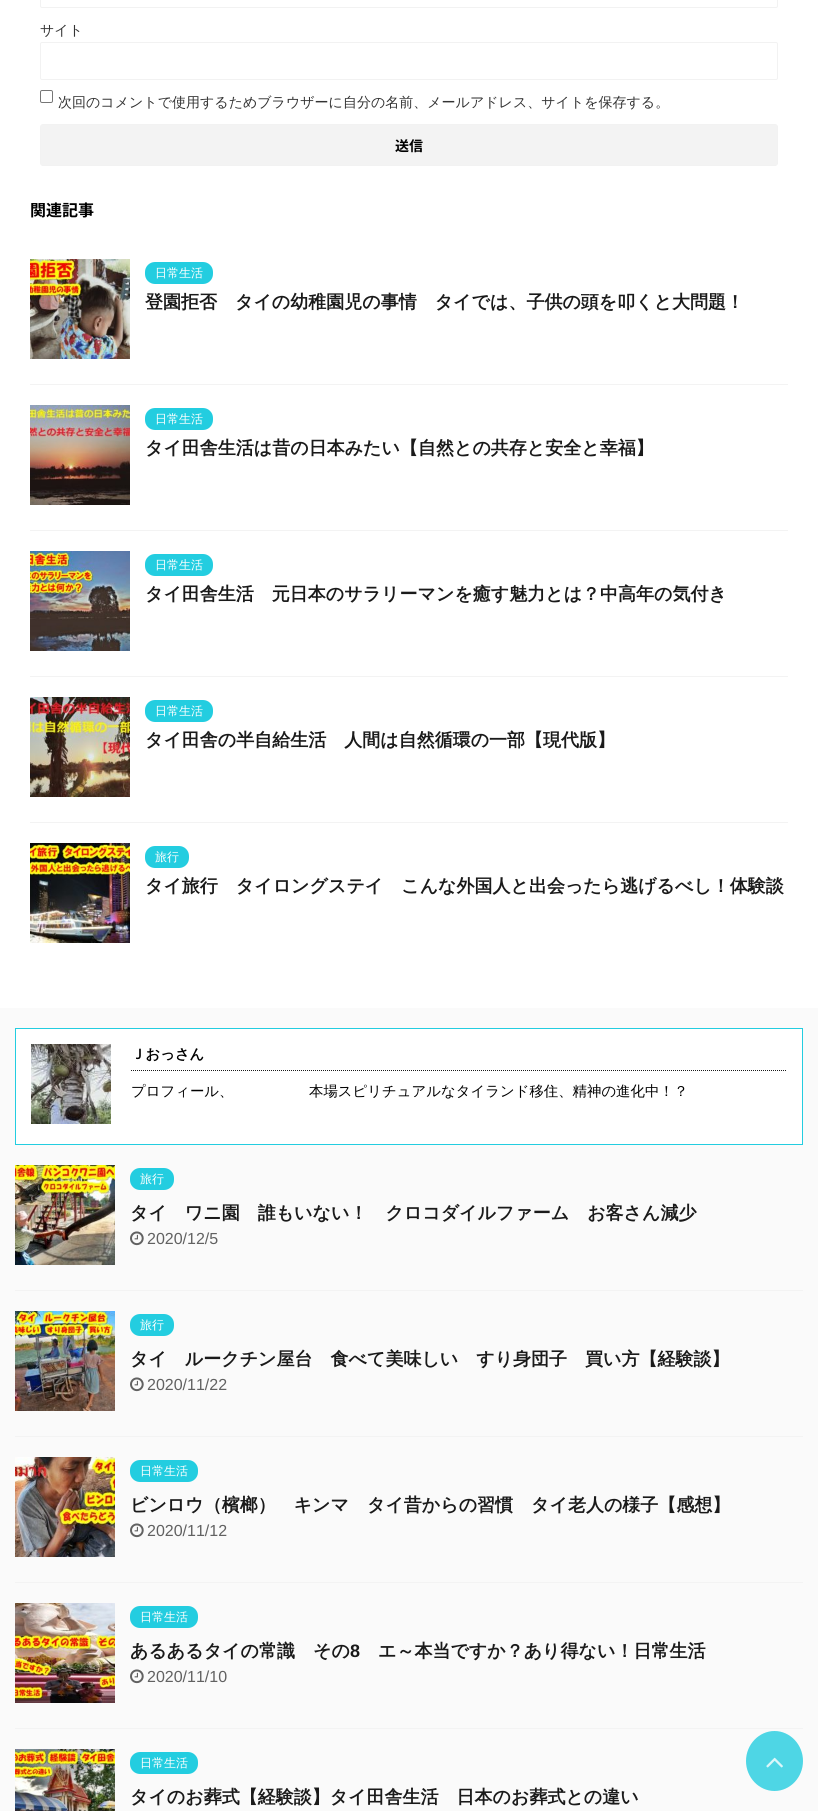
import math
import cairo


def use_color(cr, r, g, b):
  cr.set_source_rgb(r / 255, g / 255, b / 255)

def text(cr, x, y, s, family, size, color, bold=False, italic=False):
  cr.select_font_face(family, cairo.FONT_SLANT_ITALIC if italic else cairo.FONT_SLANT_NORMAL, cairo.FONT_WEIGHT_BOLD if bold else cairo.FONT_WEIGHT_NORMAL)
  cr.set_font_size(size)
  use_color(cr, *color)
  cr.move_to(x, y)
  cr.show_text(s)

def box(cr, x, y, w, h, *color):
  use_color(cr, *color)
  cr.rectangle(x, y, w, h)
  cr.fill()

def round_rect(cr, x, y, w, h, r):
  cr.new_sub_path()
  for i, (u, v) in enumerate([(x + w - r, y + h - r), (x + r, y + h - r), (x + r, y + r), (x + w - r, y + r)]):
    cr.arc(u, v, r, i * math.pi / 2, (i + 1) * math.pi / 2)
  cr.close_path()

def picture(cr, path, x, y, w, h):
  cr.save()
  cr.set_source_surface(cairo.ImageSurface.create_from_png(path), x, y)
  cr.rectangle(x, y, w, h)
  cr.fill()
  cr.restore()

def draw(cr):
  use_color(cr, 250, 250, 250)
  cr.paint()
  box(cr, 0, 0, 818, 1008, 255, 255, 255)
  round_rect(cr, 40.5, -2.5, 737, 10, 1.5)
  use_color(cr, 242, 242, 242)
  cr.set_line_width(1)
  cr.stroke()
  round_rect(cr, 40.5, 42.5, 737, 37, 1.5)
  cr.stroke()
  round_rect(cr, 40.5, 90.5, 12, 12, 1.5)
  use_color(cr, 118, 118, 118)
  cr.stroke()
  use_color(cr, 243, 243, 243)
  round_rect(cr, 40.5, 124.5, 737, 41, 2.5)
  cr.fill_preserve()
  use_color(cr, 242, 242, 242)
  cr.stroke()
  box(cr, 30, 384, 758, 1, 243, 243, 243)
  picture(cr, "img_01.png", 30, 259, 100, 100)
  use_color(cr, 35, 205, 224)
  round_rect(cr, 145, 262, 68, 22, 10)
  cr.fill()
  box(cr, 30, 530, 758, 1, 243, 243, 243)
  picture(cr, "img_02.png", 30, 405, 100, 100)
  use_color(cr, 35, 205, 224)
  round_rect(cr, 145, 408, 68, 22, 10)
  cr.fill()
  box(cr, 30, 676, 758, 1, 243, 243, 243)
  picture(cr, "img_03.png", 30, 551, 100, 100)
  use_color(cr, 35, 205, 224)
  round_rect(cr, 145, 554, 68, 22, 10)
  cr.fill()
  box(cr, 30, 822, 758, 1, 243, 243, 243)
  picture(cr, "img_04.png", 30, 697, 100, 100)
  use_color(cr, 35, 205, 224)
  round_rect(cr, 145, 700, 68, 22, 10)
  cr.fill()
  picture(cr, "img_05.png", 30, 843, 100, 100)
  round_rect(cr, 145, 846, 44, 22, 10)
  cr.fill()
  use_color(cr, 255, 255, 255)
  cr.rectangle(15.5, 1028.5, 787, 116)
  cr.fill_preserve()
  use_color(cr, 35, 205, 224)
  cr.stroke()
  picture(cr, "img_06.png", 31, 1044, 80, 80)
  cr.new_path()
  cr.move_to(131, 1070.5)
  cr.line_to(787, 1070.5)
  use_color(cr, 26, 26, 26)
  cr.set_dash([1, 1])
  cr.stroke()
  box(cr, 15, 1290, 788, 1, 243, 243, 243)
  picture(cr, "img_07.png", 15, 1165, 100, 100)
  use_color(cr, 35, 205, 224)
  round_rect(cr, 130, 1168, 44, 22, 10)
  cr.fill()
  picture(cr, "img_08.png", 130, 1231, 14, 15)
  box(cr, 15, 1436, 788, 1, 243, 243, 243)
  picture(cr, "img_09.png", 15, 1311, 100, 100)
  use_color(cr, 35, 205, 224)
  round_rect(cr, 130, 1314, 44, 22, 10)
  cr.fill()
  picture(cr, "img_08.png", 130, 1377, 14, 15)
  box(cr, 15, 1582, 788, 1, 243, 243, 243)
  picture(cr, "img_10.png", 15, 1457, 100, 100)
  use_color(cr, 35, 205, 224)
  round_rect(cr, 130, 1460, 68, 22, 10)
  cr.fill()
  picture(cr, "img_08.png", 130, 1523, 14, 15)
  box(cr, 15, 1728, 788, 1, 243, 243, 243)
  picture(cr, "img_11.png", 15, 1603, 100, 100)
  use_color(cr, 35, 205, 224)
  round_rect(cr, 130, 1606, 68, 22, 10)
  cr.fill()
  picture(cr, "img_08.png", 130, 1669, 14, 15)
  picture(cr, "img_12.png", 15, 1749, 100, 62)
  round_rect(cr, 130, 1752, 68, 22, 10)
  cr.fill()
  use_color(cr, 78, 214, 229)
  cr.new_path()
  cr.move_to(774.5, 1731)
  cr.curve_to(790, 1731, 803, 1744.5, 803, 1761)
  cr.curve_to(803, 1777.5, 790, 1791, 774.5, 1791)
  cr.curve_to(759, 1791, 746, 1777.5, 746, 1761)
  cr.curve_to(746, 1744.5, 759, 1731, 774.5, 1731)
  cr.close_path()
  cr.fill()
  picture(cr, "img_13.png", 766, 1757, 17, 11)
  text(cr, 40, 35, "サイト", "WenQuanYi Zen Hei Medium", 14, (51, 51, 51))
  text(cr, 58, 107, "次回のコメントで使用するためブラウザーに自分の名前、メールアドレス、サイトを保存する。", "WenQuanYi Zen Hei Medium", 14, (51, 51, 51))
  text(cr, 395, 151, "送信", "Noto Sans JP", 14, (0, 0, 0), bold=True)
  text(cr, 30, 216, "関連記事", "Noto Sans JP", 16, (0, 0, 0), bold=True)
  text(cr, 155, 277, "日常生活", "WenQuanYi Zen Hei Medium", 12, (255, 255, 255))
  text(cr, 145, 308, "登園拒否　タイの幼稚園児の事情　タイでは、子供の頭を叩くと大問題！", "WenQuanYi Zen Hei", 18, (26, 26, 26), bold=True)
  text(cr, 155, 423, "日常生活", "WenQuanYi Zen Hei Medium", 12, (255, 255, 255))
  text(cr, 145, 454, "タイ田舎生活は昔の日本みたい【自然との共存と安全と幸福】", "WenQuanYi Zen Hei", 18, (26, 26, 26), bold=True)
  text(cr, 155, 569, "日常生活", "WenQuanYi Zen Hei Medium", 12, (255, 255, 255))
  text(cr, 145, 600, "タイ田舎生活　元日本のサラリーマンを癒す魅力とは？中高年の気付き", "WenQuanYi Zen Hei", 18, (26, 26, 26), bold=True)
  text(cr, 155, 715, "日常生活", "WenQuanYi Zen Hei Medium", 12, (255, 255, 255))
  text(cr, 145, 746, "タイ田舎の半自給生活　人間は自然循環の一部【現代版】", "WenQuanYi Zen Hei", 18, (26, 26, 26), bold=True)
  text(cr, 155, 861, "旅行", "WenQuanYi Zen Hei Medium", 12, (255, 255, 255))
  text(cr, 145, 892, "タイ旅行　タイロングステイ　こんな外国人と出会ったら逃げるべし！体験談", "WenQuanYi Zen Hei", 18, (26, 26, 26), bold=True)
  text(cr, 131, 1059, "Ｊおっさん", "WenQuanYi Zen Hei", 14.4, (0, 0, 0), bold=True)
  text(cr, 131, 1096, "プロフィール、", "WenQuanYi Zen Hei Medium", 14.4, (0, 0, 0))
  text(cr, 309, 1096, "本場スピリチュアルなタイランド移住、精神の進化中！？", "WenQuanYi Zen Hei Medium", 14.4, (0, 0, 0))
  text(cr, 140, 1183, "旅行", "WenQuanYi Zen Hei Medium", 12, (255, 255, 255))
  text(cr, 130, 1219, "タイ　ワニ園　誰もいない！　クロコダイルファーム　お客さん減少", "WenQuanYi Zen Hei", 18, (26, 26, 26), bold=True)
  text(cr, 147, 1244, "2020/12/5", "Liberation Sans", 16, (97, 97, 97))
  text(cr, 140, 1329, "旅行", "WenQuanYi Zen Hei Medium", 12, (255, 255, 255))
  text(cr, 130, 1365, "タイ　ルークチン屋台　食べて美味しい　すり身団子　買い方【経験談】", "WenQuanYi Zen Hei", 18, (26, 26, 26), bold=True)
  text(cr, 147, 1390, "2020/11/22", "Liberation Sans", 16, (97, 97, 97))
  text(cr, 140, 1475, "日常生活", "WenQuanYi Zen Hei Medium", 12, (255, 255, 255))
  text(cr, 130, 1511, "ビンロウ（檳榔）　キンマ　タイ昔からの習慣　タイ老人の様子【感想】", "WenQuanYi Zen Hei", 18, (26, 26, 26), bold=True)
  text(cr, 147, 1536, "2020/11/12", "Liberation Sans", 16, (97, 97, 97))
  text(cr, 140, 1621, "日常生活", "WenQuanYi Zen Hei Medium", 12, (255, 255, 255))
  text(cr, 130, 1657, "あるあるタイの常識　その", "WenQuanYi Zen Hei", 18, (26, 26, 26), bold=True)
  text(cr, 350, 1657, "8", "Liberation Sans", 18, (26, 26, 26), bold=True)
  text(cr, 378, 1657, "エ～本当ですか？あり得ない！日常生活", "WenQuanYi Zen Hei", 18, (26, 26, 26), bold=True)
  text(cr, 147, 1682, "2020/11/10", "Liberation Sans", 16, (97, 97, 97))
  text(cr, 140, 1767, "日常生活", "WenQuanYi Zen Hei Medium", 12, (255, 255, 255))
  text(cr, 130, 1803, "タイのお葬式【経験談】タイ田舎生活　日本のお葬式との違い", "WenQuanYi Zen Hei", 18, (26, 26, 26), bold=True)


surface = cairo.ImageSurface(cairo.FORMAT_RGB24, 818, 1811)
cr = cairo.Context(surface)
options = cairo.FontOptions()
options.set_hint_metrics(cairo.HINT_METRICS_OFF)
options.set_hint_style(cairo.HINT_STYLE_NONE)
cr.set_font_options(options)
cr.set_miter_limit(4)
draw(cr)
surface.write_to_png("out.png")
